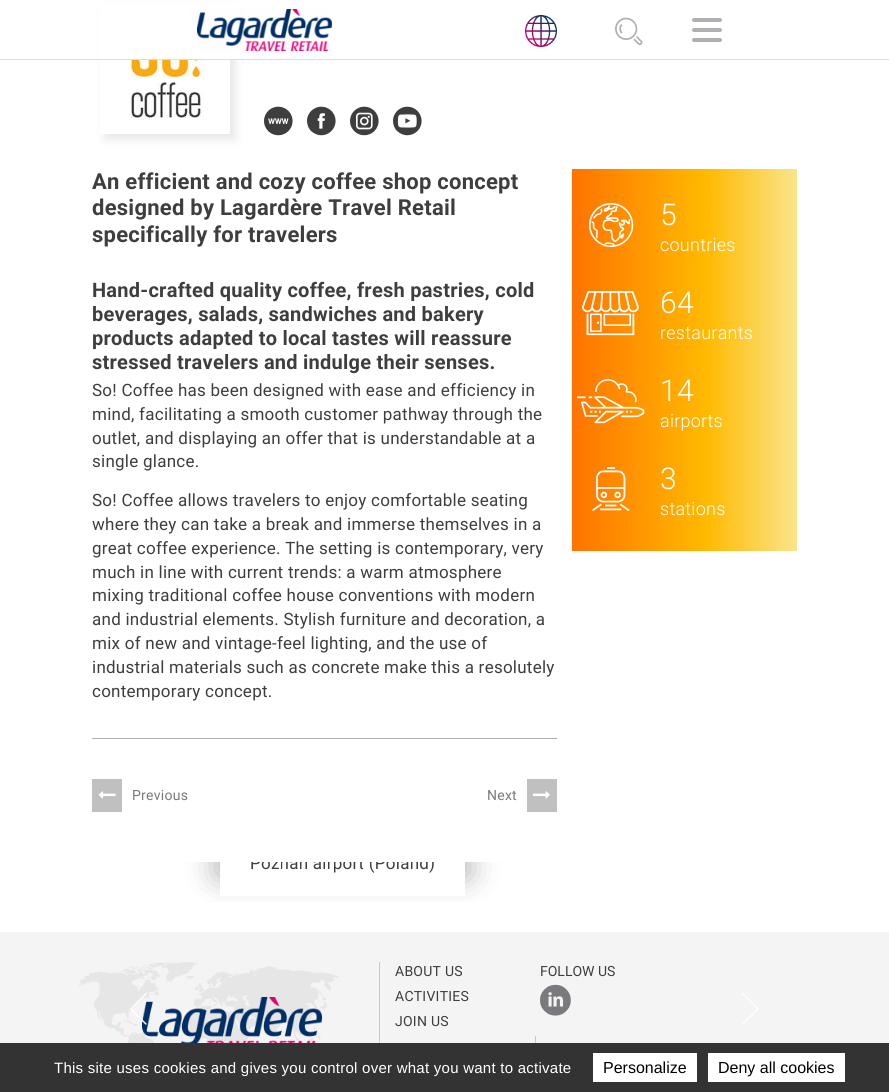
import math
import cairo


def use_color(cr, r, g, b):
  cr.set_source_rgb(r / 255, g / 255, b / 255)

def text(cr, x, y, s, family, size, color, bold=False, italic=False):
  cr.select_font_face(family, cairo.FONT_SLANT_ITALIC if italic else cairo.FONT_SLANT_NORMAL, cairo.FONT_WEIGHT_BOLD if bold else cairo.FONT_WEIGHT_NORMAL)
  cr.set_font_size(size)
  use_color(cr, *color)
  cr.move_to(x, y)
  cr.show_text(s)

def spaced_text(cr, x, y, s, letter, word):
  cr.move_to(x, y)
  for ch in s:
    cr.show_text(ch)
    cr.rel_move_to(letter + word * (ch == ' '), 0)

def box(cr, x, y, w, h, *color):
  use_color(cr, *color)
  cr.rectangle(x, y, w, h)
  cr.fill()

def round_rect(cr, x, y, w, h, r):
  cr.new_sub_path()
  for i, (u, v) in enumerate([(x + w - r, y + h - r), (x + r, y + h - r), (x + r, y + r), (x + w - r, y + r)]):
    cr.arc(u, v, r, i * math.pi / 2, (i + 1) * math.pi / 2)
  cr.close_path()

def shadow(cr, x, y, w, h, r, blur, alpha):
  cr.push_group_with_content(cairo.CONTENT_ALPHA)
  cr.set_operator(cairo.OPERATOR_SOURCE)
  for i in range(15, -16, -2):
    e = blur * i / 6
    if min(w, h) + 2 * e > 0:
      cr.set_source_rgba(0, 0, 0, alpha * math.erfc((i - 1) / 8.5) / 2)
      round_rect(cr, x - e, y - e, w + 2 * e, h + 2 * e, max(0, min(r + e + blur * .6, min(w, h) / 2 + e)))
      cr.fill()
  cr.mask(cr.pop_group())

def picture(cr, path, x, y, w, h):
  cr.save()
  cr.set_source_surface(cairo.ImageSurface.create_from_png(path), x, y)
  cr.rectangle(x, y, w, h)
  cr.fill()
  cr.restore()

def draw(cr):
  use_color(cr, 255, 255, 255)
  cr.paint()
  cr.save()
  cr.set_fill_rule(cairo.FILL_RULE_EVEN_ODD)
  cr.new_path()
  cr.move_to(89, 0)
  cr.line_to(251, 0)
  cr.line_to(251, 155)
  cr.line_to(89, 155)
  cr.close_path()
  cr.move_to(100, 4)
  cr.line_to(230, 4)
  cr.line_to(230, 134)
  cr.line_to(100, 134)
  cr.close_path()
  cr.clip()
  use_color(cr, 0, 0, 0)
  shadow(cr, 105, 9, 130, 130, 0, 5, 0.1)
  cr.restore()
  box(cr, 99, 3, 142, 56, 255, 255, 255)
  box(cr, 0, 59, 889, 1, 221, 221, 221)
  picture(cr, "img_01.png", 197, 9, 135, 42)
  picture(cr, "img_02.png", 525, 15, 32, 32)
  picture(cr, "img_03.png", 615, 17, 28, 28)
  use_color(cr, 175, 175, 180)
  round_rect(cr, 692, 28, 30, 4, 2)
  cr.fill()
  round_rect(cr, 692, 18, 30, 4, 2)
  cr.fill()
  round_rect(cr, 692, 38, 30, 4, 2)
  cr.fill()
  picture(cr, "img_04.png", 130, 60, 75, 58)
  picture(cr, "img_05.png", 264, 106, 29, 30)
  picture(cr, "img_06.png", 307, 106, 29, 30)
  picture(cr, "img_07.png", 350, 106, 29, 30)
  picture(cr, "img_08.png", 393, 106, 29, 30)
  box(cr, 92, 738, 465, 1, 175, 175, 175)
  box(cr, 92, 779, 30, 33, 192, 192, 192)
  picture(cr, "img_09.png", 98, 791, 18, 8)
  box(cr, 527, 779, 30, 33, 192, 192, 192)
  picture(cr, "img_10.png", 533, 791, 17, 8)
  gradient = cairo.LinearGradient(572, 360, 797, 360)
  gradient.add_color_stop_rgba(0, 1, 0.451, 0, 1)
  gradient.add_color_stop_rgba(0.6, 1, 0.729, 0, 1)
  gradient.add_color_stop_rgba(1, 0.98, 0.898, 0.549, 1)
  cr.set_source(gradient)
  cr.rectangle(572, 169, 225, 382)
  cr.fill()
  picture(cr, "img_11.png", 589, 203, 45, 45)
  picture(cr, "img_12.png", 582, 291, 57, 45)
  picture(cr, "img_13.png", 577, 379, 68, 45)
  picture(cr, "img_14.png", 592, 467, 38, 45)
  cr.save()
  cr.rectangle(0, 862, 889, 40)
  cr.clip()
  cr.set_fill_rule(cairo.FILL_RULE_EVEN_ODD)
  cr.new_path()
  cr.move_to(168, 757)
  cr.line_to(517, 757)
  cr.line_to(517, 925)
  cr.line_to(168, 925)
  cr.close_path()
  cr.move_to(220, 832)
  cr.line_to(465, 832)
  cr.line_to(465, 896)
  cr.line_to(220, 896)
  cr.close_path()
  cr.clip()
  use_color(cr, 0, 0, 0)
  shadow(cr, 216, 805, 253, 72, 0, 15.5, 0.3)
  cr.restore()
  box(cr, 0, 932, 889, 111, 244, 244, 244)
  picture(cr, "img_17.png", 78, 962, 261, 81)
  picture(cr, "img_18.png", 142, 997, 180, 46)
  picture(cr, "img_15.png", 130, 993, 17, 32)
  picture(cr, "img_16.png", 742, 993, 17, 32)
  box(cr, 379, 962, 1, 81, 200, 200, 200)
  picture(cr, "img_19.png", 540, 984, 31, 32)
  box(cr, 535, 1036, 1, 7, 200, 200, 200)
  box(cr, 0, 1043, 889, 49, 51, 51, 51)
  box(cr, 593, 1053, 104, 29, 255, 255, 255)
  box(cr, 708, 1053, 137, 29, 255, 255, 255)
  cr.select_font_face("Roboto", cairo.FONT_SLANT_NORMAL, cairo.FONT_WEIGHT_BOLD)
  cr.set_font_size(22)
  use_color(cr, 62, 62, 62)
  spaced_text(cr, 92, 189, "An efficient and cozy coffee shop concept", 0.25, 0)
  spaced_text(cr, 92, 215, "designed by Lagardère Travel Retail", 0.25, 0)
  spaced_text(cr, 92, 242, "specifically for travelers", 0.25, 0)
  cr.set_font_size(20)
  spaced_text(cr, 92, 297, "Hand-crafted quality coffee, fresh pastries, cold", 0.25, 0)
  spaced_text(cr, 92, 321, "beverages, salads, sandwiches and bakery", 0.25, 0)
  spaced_text(cr, 92, 345, "products adapted to local tastes will reassure", 0.25, 0)
  spaced_text(cr, 92, 369, "stressed travelers and indulge their senses.", 0.25, 0)
  cr.select_font_face("Roboto")
  cr.set_font_size(17)
  spaced_text(cr, 92, 396, "So! Coffee has been designed with ease and efficiency in", 0.25, 0)
  spaced_text(cr, 92, 420, "mind, facilitating a smooth customer pathway through the", 0.25, 0)
  spaced_text(cr, 92, 444, "outlet, and displaying an offer that is understandable at a", 0.25, 0)
  spaced_text(cr, 92, 467, "single glance.", 0.25, 0)
  spaced_text(cr, 92, 506, "So! Coffee allows travelers to enjoy comfortable seating", 0.25, 0)
  spaced_text(cr, 92, 530, "where they can take a break and immerse themselves in a", 0.25, 0)
  spaced_text(cr, 92, 554, "great coffee experience. The setting is contemporary, very", 0.25, 0)
  spaced_text(cr, 92, 578, "much in line with current trends: a warm atmosphere", 0.25, 0)
  spaced_text(cr, 92, 601, "mixing traditional coffee house conventions with modern", 0.25, 0)
  spaced_text(cr, 92, 625, "and industrial elements. Stylish furniture and decoration, a", 0.25, 0)
  spaced_text(cr, 92, 649, "mix of new and vintage-feel lighting, and the use of", 0.25, 0)
  spaced_text(cr, 92, 673, "industrial materials such as concrete make this a resolutely", 0.25, 0)
  spaced_text(cr, 92, 697, "contemporary concept.", 0.25, 0)
  cr.set_font_size(14)
  use_color(cr, 121, 121, 126)
  spaced_text(cr, 132, 800, "Previous", 0.25, 0)
  spaced_text(cr, 487, 800, "Next", 0.25, 0)
  cr.select_font_face("Roboto Light")
  cr.set_font_size(30)
  use_color(cr, 255, 255, 255)
  spaced_text(cr, 660, 225, "5", 0.25, 0)
  cr.set_font_size(18)
  spaced_text(cr, 660, 251, "countries", 0.25, 0)
  cr.set_font_size(30)
  spaced_text(cr, 660, 313, "64", 0.25, 0)
  cr.set_font_size(18)
  spaced_text(cr, 660, 339, "restaurants", 0.25, 0)
  cr.set_font_size(30)
  spaced_text(cr, 660, 401, "14", 0.25, 0)
  cr.set_font_size(18)
  spaced_text(cr, 660, 427, "airports", 0.25, 0)
  cr.set_font_size(30)
  spaced_text(cr, 660, 489, "3", 0.25, 0)
  cr.set_font_size(18)
  spaced_text(cr, 660, 515, "stations", 0.25, 0)
  cr.save()
  cr.rectangle(220, 862, 245, 34)
  cr.clip()
  cr.select_font_face("Roboto")
  cr.set_font_size(17)
  use_color(cr, 62, 62, 62)
  spaced_text(cr, 250, 869, "Poznan airport (Poland)", 0.25, 0)
  cr.restore()
  cr.select_font_face("Roboto")
  cr.set_font_size(14)
  use_color(cr, 62, 62, 62)
  spaced_text(cr, 395, 976, "ABOUT US", 0.25, 0)
  spaced_text(cr, 395, 1001, "ACTIVITIES", 0.25, 0)
  spaced_text(cr, 395, 1026, "JOIN US", 0.25, 0)
  text(cr, 540, 976, "FOLLOW US", "Roboto", 14, (62, 62, 62))
  cr.select_font_face("Liberation Sans")
  cr.set_font_size(15)
  use_color(cr, 255, 255, 255)
  spaced_text(cr, 54, 1073, "This site uses cookies and gives you control over what you want to activate", 0.25, 0)
  text(cr, 603, 1073, "Personalize", "Liberation Sans", 16, (0, 0, 0))
  text(cr, 718, 1073, "Deny all cookies", "Liberation Sans", 16, (0, 0, 0))


surface = cairo.ImageSurface(cairo.FORMAT_RGB24, 889, 1092)
cr = cairo.Context(surface)
options = cairo.FontOptions()
options.set_hint_metrics(cairo.HINT_METRICS_OFF)
options.set_hint_style(cairo.HINT_STYLE_NONE)
cr.set_font_options(options)
cr.set_miter_limit(4)
draw(cr)
surface.write_to_png("out.png")
